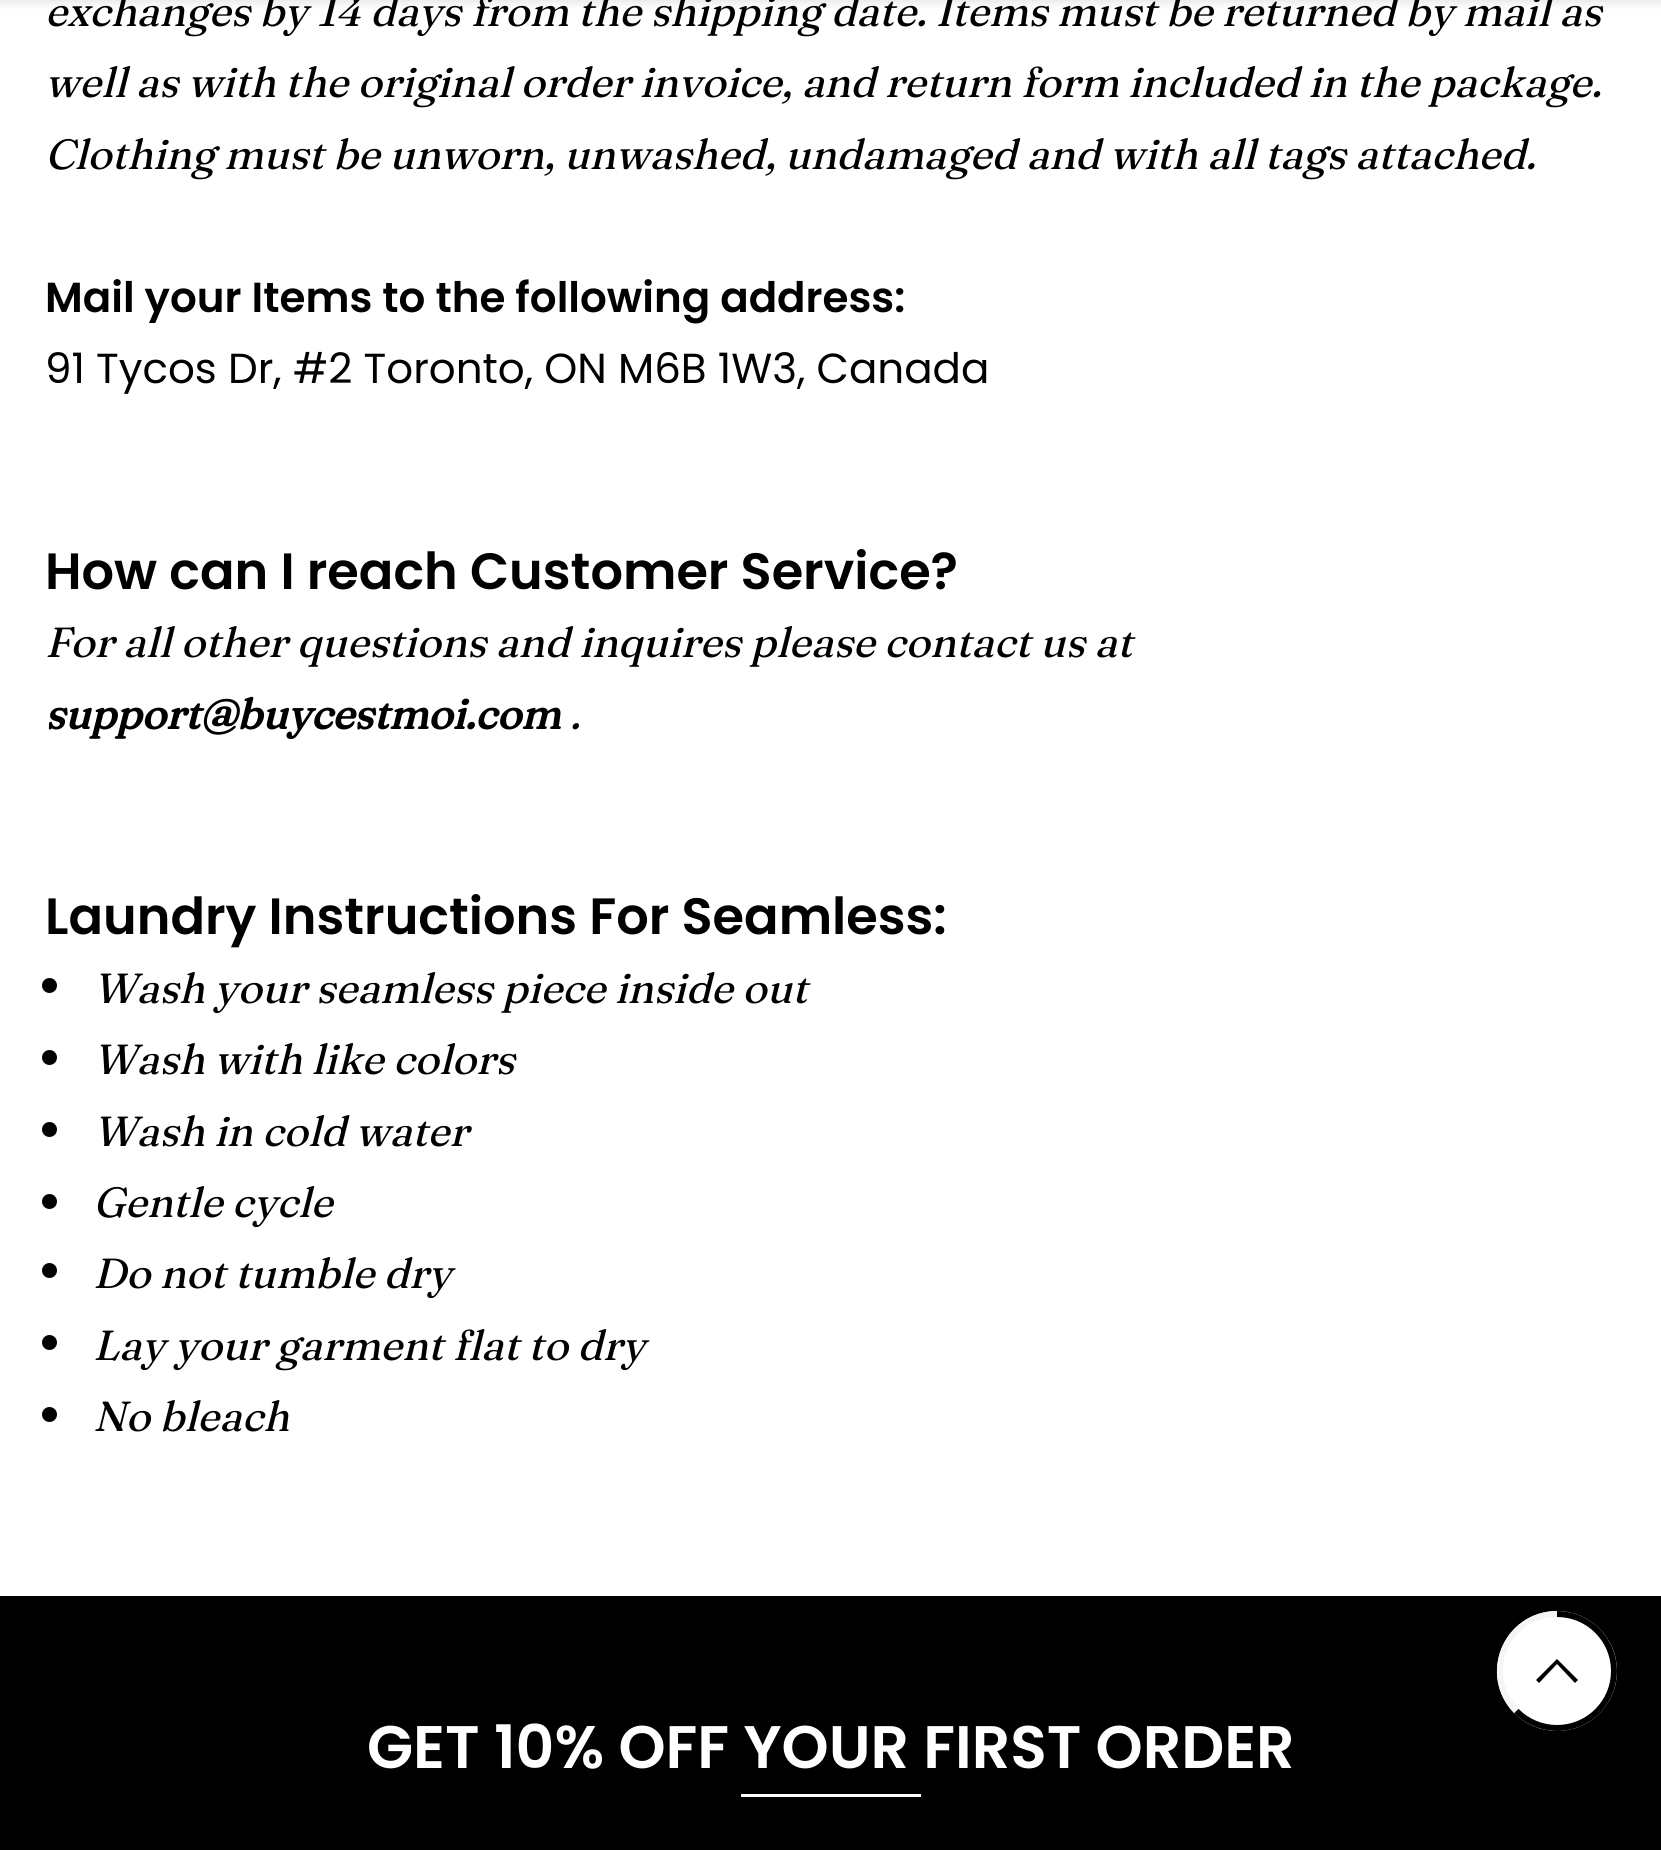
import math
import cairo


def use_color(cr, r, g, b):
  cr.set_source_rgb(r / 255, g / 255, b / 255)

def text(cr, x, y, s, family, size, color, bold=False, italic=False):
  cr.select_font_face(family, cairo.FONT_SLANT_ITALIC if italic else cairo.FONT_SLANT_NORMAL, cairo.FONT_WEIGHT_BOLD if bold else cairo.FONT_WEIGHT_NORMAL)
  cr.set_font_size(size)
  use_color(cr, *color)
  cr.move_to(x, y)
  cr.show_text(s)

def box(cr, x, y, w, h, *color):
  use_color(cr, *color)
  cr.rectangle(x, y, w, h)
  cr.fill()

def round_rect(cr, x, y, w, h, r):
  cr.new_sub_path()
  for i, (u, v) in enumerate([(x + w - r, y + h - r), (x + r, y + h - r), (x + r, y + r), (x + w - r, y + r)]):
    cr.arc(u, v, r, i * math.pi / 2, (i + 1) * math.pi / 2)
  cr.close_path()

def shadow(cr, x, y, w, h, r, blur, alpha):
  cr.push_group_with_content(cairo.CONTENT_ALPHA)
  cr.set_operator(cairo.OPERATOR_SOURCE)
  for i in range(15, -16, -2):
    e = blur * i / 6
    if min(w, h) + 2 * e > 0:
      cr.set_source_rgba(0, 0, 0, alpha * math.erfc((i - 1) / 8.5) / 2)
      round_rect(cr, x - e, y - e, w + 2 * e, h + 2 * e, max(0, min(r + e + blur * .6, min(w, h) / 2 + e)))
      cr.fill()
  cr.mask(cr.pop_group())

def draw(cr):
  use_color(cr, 255, 255, 255)
  cr.paint()
  use_color(cr, 0, 0, 0)
  shadow(cr, 0, -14, 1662, 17, 0, 4.5, 0.1)
  use_color(cr, 0, 0, 0)
  cr.arc(49.5, 985.5, 7.5, 0, 2 * math.pi)
  cr.fill()
  cr.arc(49.5, 1057.5, 7.5, 0, 2 * math.pi)
  cr.fill()
  cr.arc(49.5, 1129.5, 7.5, 0, 2 * math.pi)
  cr.fill()
  cr.arc(49.5, 1201.5, 7.5, 0, 2 * math.pi)
  cr.fill()
  cr.arc(49.5, 1270.5, 7.5, 0, 2 * math.pi)
  cr.fill()
  cr.arc(49.5, 1342.5, 7.5, 0, 2 * math.pi)
  cr.fill()
  cr.arc(49.5, 1414.5, 7.5, 0, 2 * math.pi)
  cr.fill()
  box(cr, 0, 1596, 1661, 254, 0, 0, 0)
  box(cr, 741, 1794, 180, 3, 255, 255, 255)
  cr.arc(1557, 1671, 60, 0, 2 * math.pi)
  cr.fill()
  use_color(cr, 0, 0, 0)
  cr.new_path()
  cr.move_to(1557, 1671)
  cr.line_to(1557, 1611)
  cr.curve_to(1584, 1611, 1608, 1629, 1615, 1656)
  cr.curve_to(1622, 1682, 1610, 1710, 1587, 1723)
  cr.curve_to(1563, 1737, 1533, 1732, 1514, 1713)
  cr.close_path()
  cr.fill()
  use_color(cr, 245, 245, 245)
  cr.new_path()
  cr.move_to(1557, 1671)
  cr.line_to(1514, 1713)
  cr.curve_to(1477, 1675, 1504, 1611, 1557, 1611)
  cr.close_path()
  cr.fill()
  use_color(cr, 255, 255, 255)
  cr.arc(1557, 1671, 54, 0, 2 * math.pi)
  cr.fill()
  use_color(cr, 0, 0, 0)
  cr.new_path()
  cr.move_to(1560, 1662)
  cr.line_to(1557, 1659)
  cr.line_to(1536, 1680)
  cr.line_to(1539, 1683)
  cr.line_to(1557, 1664)
  cr.line_to(1575, 1683)
  cr.line_to(1578, 1680)
  cr.line_to(1567, 1669)
  cr.close_path()
  cr.fill()
  text(cr, 45, 26, "exchanges by 14 days from the shipping date. Items must be returned by mail as", "Fraunces", 42, (0, 0, 0), italic=True)
  text(cr, 45, 97, "well as with the original order invoice, and return form included in the package.", "Fraunces", 42, (0, 0, 0), italic=True)
  text(cr, 45, 169, "Clothing must be unworn, unwashed, undamaged and with all tags attached.", "Fraunces", 42, (0, 0, 0), italic=True)
  text(cr, 45, 312, "Mail your Items to the following address:", "Poppins SemiBold", 42, (0, 0, 0))
  text(cr, 45, 383, "91 Tycos Dr, #2 Toronto, ON M6B 1W3, Canada", "Poppins", 42, (0, 0, 0))
  text(cr, 45, 589, "How can I reach Customer Service?", "Poppins SemiBold", 51, (0, 0, 0))
  text(cr, 45, 657, "For all other questions and inquires please contact us at", "Fraunces", 42, (0, 0, 0), italic=True)
  text(cr, 45, 729, "support@buycestmoi.com", "Fraunces", 42, (0, 0, 0), bold=True, italic=True)
  text(cr, 570, 729, ".", "Fraunces", 42, (0, 0, 0), italic=True)
  text(cr, 45, 934, "Laundry Instructions For Seamless:", "Poppins SemiBold", 51, (0, 0, 0))
  text(cr, 93, 1003, "Wash your seamless piece inside out", "Fraunces", 42, (0, 0, 0), italic=True)
  text(cr, 93, 1074, "Wash with like colors", "Fraunces", 42, (0, 0, 0), italic=True)
  text(cr, 93, 1146, "Wash in cold water", "Fraunces", 42, (0, 0, 0), italic=True)
  text(cr, 93, 1217, "Gentle cycle", "Fraunces", 42, (0, 0, 0), italic=True)
  text(cr, 93, 1288, "Do not tumble dry", "Fraunces", 42, (0, 0, 0), italic=True)
  text(cr, 93, 1360, "Lay your garment flat to dry", "Fraunces", 42, (0, 0, 0), italic=True)
  text(cr, 93, 1431, "No bleach", "Fraunces", 42, (0, 0, 0), italic=True)
  text(cr, 367, 1768, "GET 10% OFF YOUR FIRST ORDER", "Poppins SemiBold", 60, (255, 255, 255))


surface = cairo.ImageSurface(cairo.FORMAT_RGB24, 1661, 1850)
cr = cairo.Context(surface)
options = cairo.FontOptions()
options.set_hint_metrics(cairo.HINT_METRICS_OFF)
options.set_hint_style(cairo.HINT_STYLE_NONE)
cr.set_font_options(options)
cr.set_miter_limit(4)
draw(cr)
surface.write_to_png("out.png")
